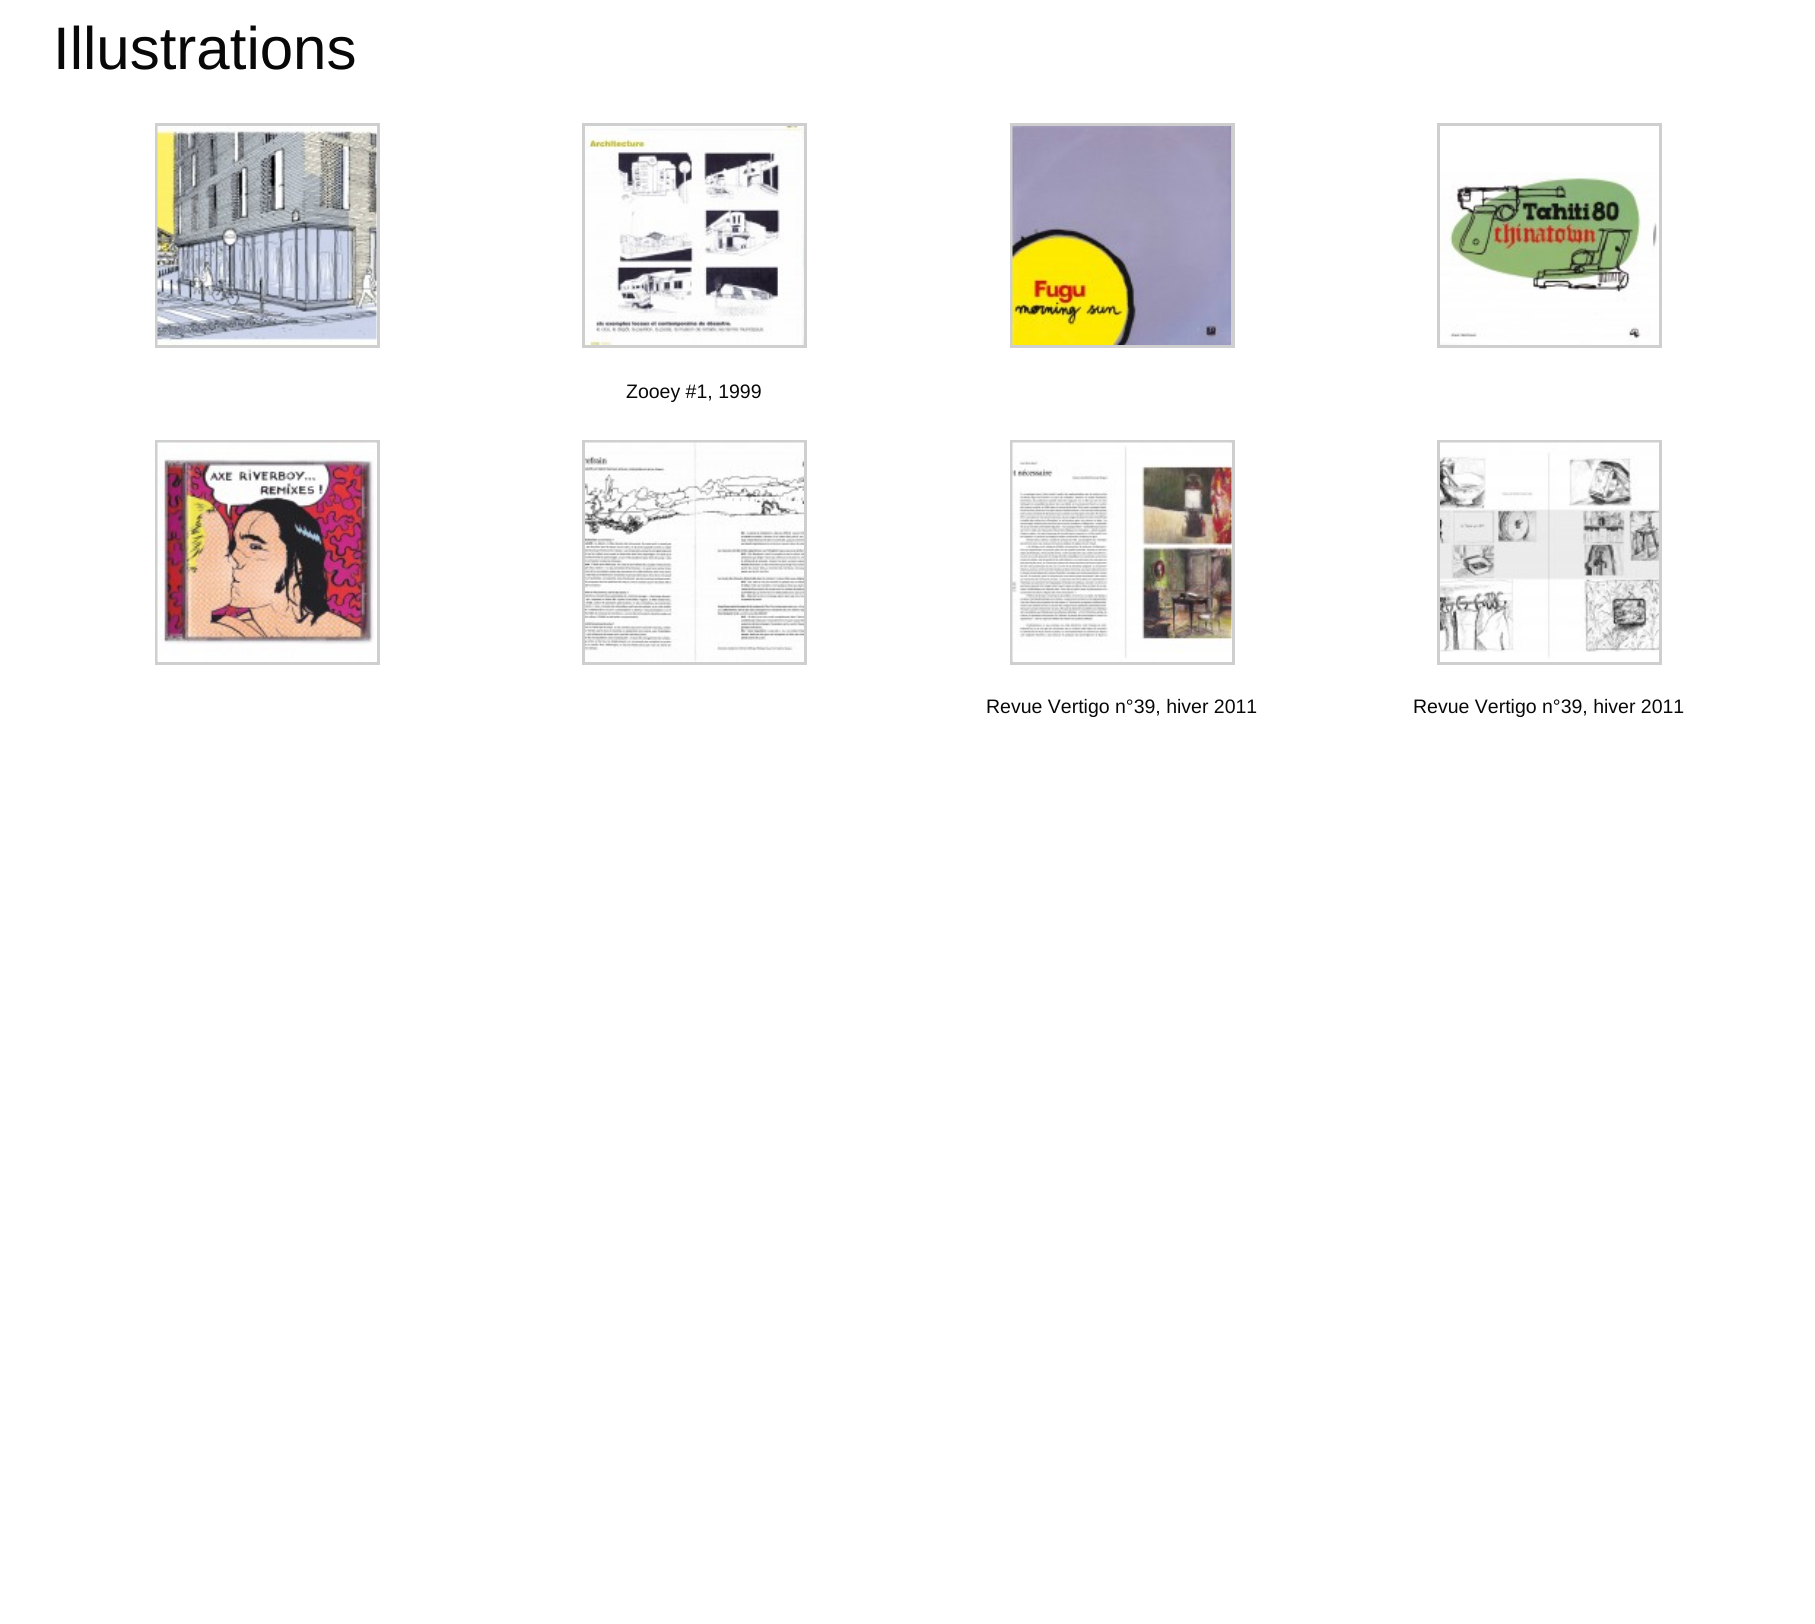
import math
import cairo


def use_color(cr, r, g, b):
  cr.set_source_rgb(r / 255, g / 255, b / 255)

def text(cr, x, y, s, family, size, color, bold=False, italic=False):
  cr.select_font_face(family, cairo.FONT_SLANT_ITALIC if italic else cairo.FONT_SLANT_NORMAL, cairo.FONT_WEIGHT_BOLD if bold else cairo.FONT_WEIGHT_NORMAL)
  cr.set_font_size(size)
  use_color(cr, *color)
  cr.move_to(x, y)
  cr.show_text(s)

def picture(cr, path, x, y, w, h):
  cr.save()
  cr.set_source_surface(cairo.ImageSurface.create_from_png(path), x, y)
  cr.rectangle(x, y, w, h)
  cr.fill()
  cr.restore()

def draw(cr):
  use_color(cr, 255, 255, 255)
  cr.paint()
  cr.rectangle(156.5, 124.5, 222, 222)
  use_color(cr, 207, 207, 207)
  cr.set_line_width(3)
  cr.stroke()
  picture(cr, "img_01.png", 157, 126, 220, 219)
  cr.rectangle(1011.5, 124.5, 222, 222)
  cr.stroke()
  picture(cr, "img_02.png", 1012, 126, 220, 219)
  cr.rectangle(1438.5, 124.5, 222, 222)
  cr.stroke()
  picture(cr, "img_03.png", 1440, 172, 219, 173)
  cr.rectangle(583.5, 124.5, 222, 222)
  cr.stroke()
  picture(cr, "img_04.png", 585, 126, 219, 219)
  cr.rectangle(156.5, 441.5, 222, 222)
  cr.stroke()
  picture(cr, "img_05.png", 157, 442, 220, 220)
  cr.rectangle(583.5, 441.5, 222, 222)
  cr.stroke()
  picture(cr, "img_06.png", 585, 442, 219, 220)
  cr.rectangle(1011.5, 441.5, 222, 222)
  cr.stroke()
  picture(cr, "img_07.png", 1012, 442, 220, 220)
  cr.rectangle(1438.5, 441.5, 222, 222)
  cr.stroke()
  picture(cr, "img_08.png", 1440, 442, 219, 217)
  text(cr, 53, 69, "Illustrations", "Liberation Sans", 60, (8, 8, 8))
  text(cr, 626, 398, "Zooey #1, 1999", "Liberation Sans", 19.5, (8, 8, 8))
  text(cr, 986, 713, "Revue Vertigo n°39, hiver 2011", "Liberation Sans", 19.5, (8, 8, 8))
  text(cr, 1413, 713, "Revue Vertigo n°39, hiver 2011", "Liberation Sans", 19.5, (8, 8, 8))


surface = cairo.ImageSurface(cairo.FORMAT_RGB24, 1815, 1624)
cr = cairo.Context(surface)
options = cairo.FontOptions()
options.set_hint_metrics(cairo.HINT_METRICS_OFF)
options.set_hint_style(cairo.HINT_STYLE_NONE)
cr.set_font_options(options)
cr.set_miter_limit(4)
draw(cr)
surface.write_to_png("out.png")
